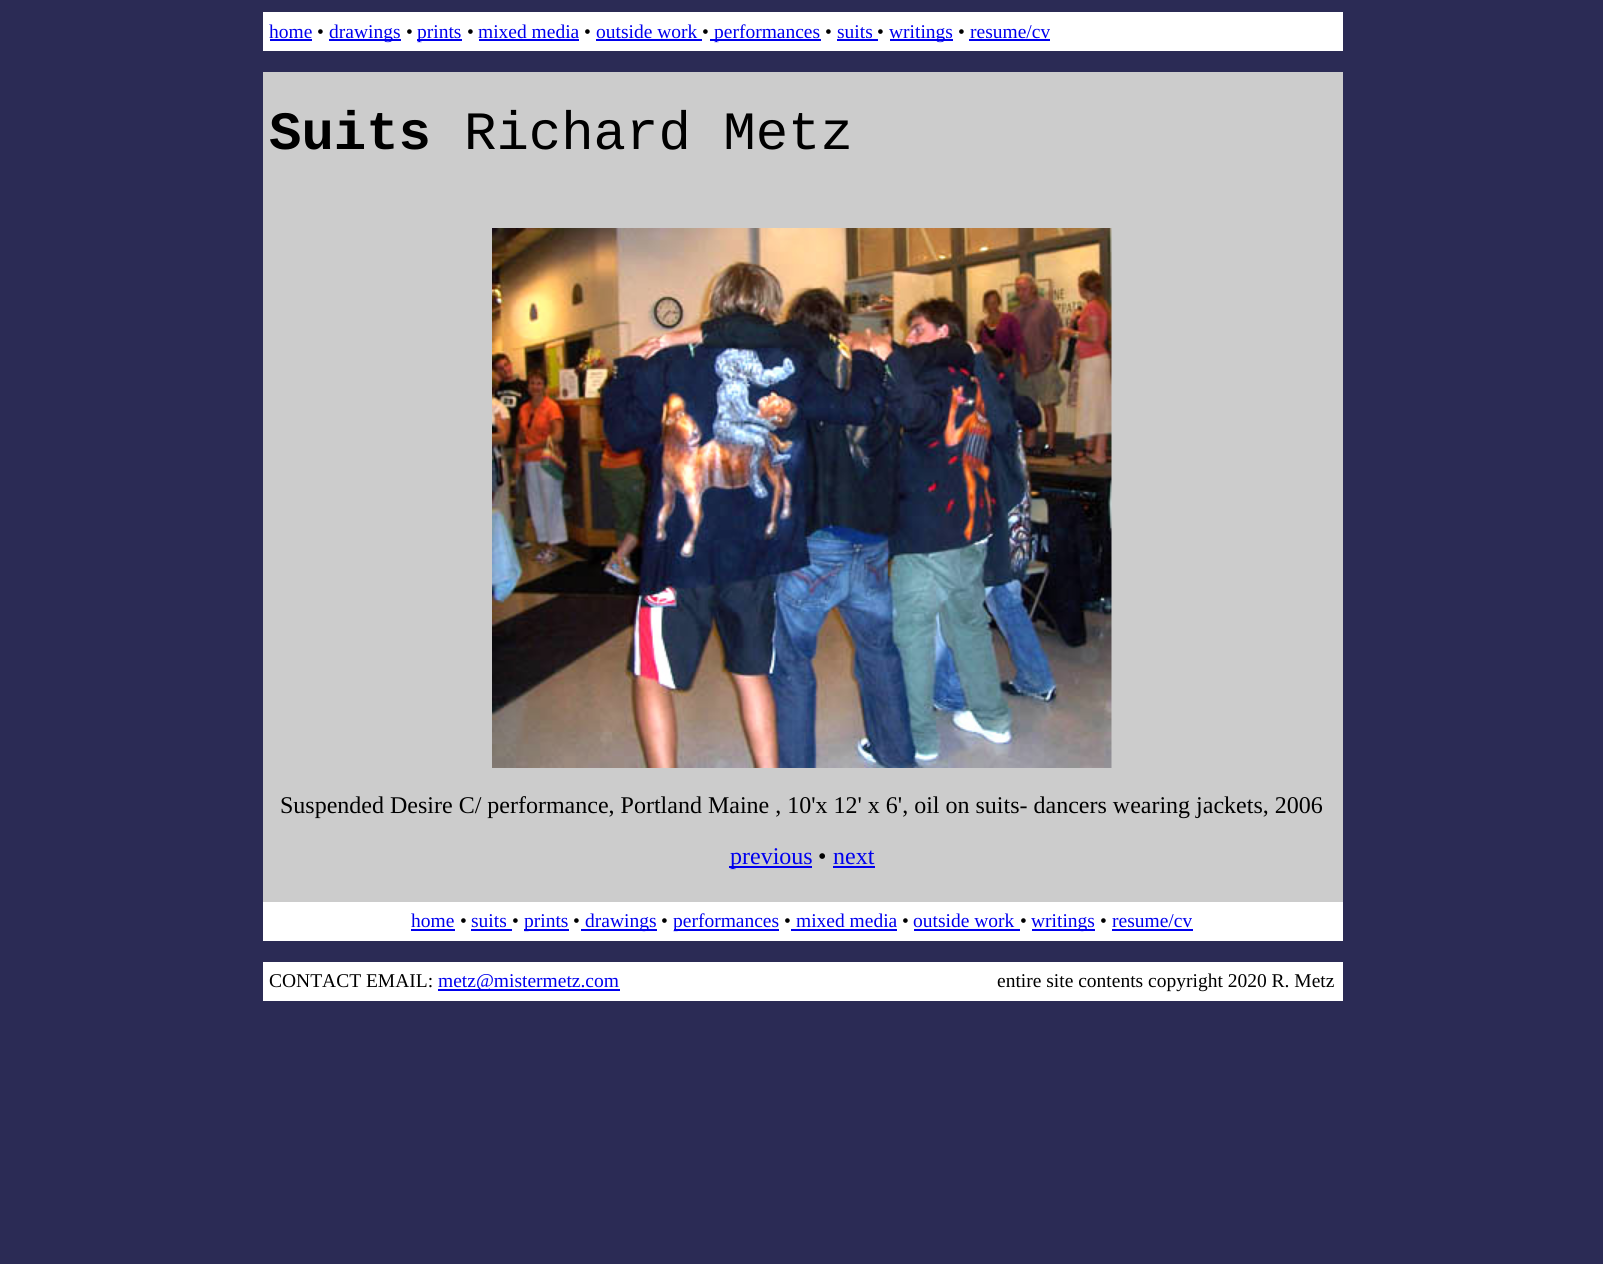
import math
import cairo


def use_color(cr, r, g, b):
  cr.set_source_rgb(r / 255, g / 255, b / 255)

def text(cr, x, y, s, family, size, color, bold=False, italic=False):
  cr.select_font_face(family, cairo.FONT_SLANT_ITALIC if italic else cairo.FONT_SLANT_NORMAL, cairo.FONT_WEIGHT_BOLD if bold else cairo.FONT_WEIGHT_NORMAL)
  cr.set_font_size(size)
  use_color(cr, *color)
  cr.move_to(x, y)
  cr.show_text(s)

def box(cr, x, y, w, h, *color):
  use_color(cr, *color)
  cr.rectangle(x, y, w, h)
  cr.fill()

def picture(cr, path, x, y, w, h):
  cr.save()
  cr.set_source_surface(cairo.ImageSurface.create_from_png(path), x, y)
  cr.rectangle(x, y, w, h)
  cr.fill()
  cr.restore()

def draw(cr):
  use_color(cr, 43, 43, 85)
  cr.paint()
  box(cr, 263, 12, 1080, 39, 255, 255, 255)
  box(cr, 270, 39, 42, 2, 0, 0, 238)
  box(cr, 329, 39, 72, 2, 0, 0, 238)
  box(cr, 417, 39, 45, 2, 0, 0, 238)
  box(cr, 479, 39, 100, 2, 0, 0, 238)
  box(cr, 596, 39, 106, 2, 0, 0, 238)
  box(cr, 710, 39, 111, 2, 0, 0, 238)
  box(cr, 837, 39, 41, 2, 0, 0, 238)
  box(cr, 890, 39, 63, 2, 0, 0, 238)
  box(cr, 969, 39, 81, 2, 0, 0, 238)
  box(cr, 263, 72, 1080, 830, 204, 204, 204)
  picture(cr, "img_01.png", 492, 228, 620, 540)
  box(cr, 729, 866, 83, 2, 0, 0, 238)
  box(cr, 833, 866, 42, 2, 0, 0, 238)
  box(cr, 263, 902, 1080, 39, 255, 255, 255)
  box(cr, 411, 929, 44, 2, 0, 0, 238)
  box(cr, 471, 929, 41, 2, 0, 0, 238)
  box(cr, 524, 929, 45, 2, 0, 0, 238)
  box(cr, 581, 929, 76, 2, 0, 0, 238)
  box(cr, 674, 929, 105, 2, 0, 0, 238)
  box(cr, 791, 929, 106, 2, 0, 0, 238)
  box(cr, 914, 929, 106, 2, 0, 0, 238)
  box(cr, 1032, 929, 63, 2, 0, 0, 238)
  box(cr, 1112, 929, 81, 2, 0, 0, 238)
  box(cr, 263, 962, 1080, 39, 255, 255, 255)
  box(cr, 438, 989, 182, 2, 0, 0, 238)
  text(cr, 269, 38, "home", "Liberation Serif", 19.5, (0, 0, 238))
  text(cr, 317, 38, "•", "Liberation Serif", 19.5, (0, 0, 0))
  text(cr, 329, 38, "drawings", "Liberation Serif", 19.5, (0, 0, 238))
  text(cr, 406, 38, "•", "Liberation Serif", 19.5, (0, 0, 0))
  text(cr, 417, 38, "prints", "Liberation Serif", 19.5, (0, 0, 238))
  text(cr, 467, 38, "•", "Liberation Serif", 19.5, (0, 0, 0))
  text(cr, 478, 38, "mixed media", "Liberation Serif", 19.5, (0, 0, 238))
  text(cr, 584, 38, "•", "Liberation Serif", 19.5, (0, 0, 0))
  text(cr, 596, 38, "outside work", "Liberation Serif", 19.5, (0, 0, 238))
  text(cr, 702, 38, "•", "Liberation Serif", 19.5, (0, 0, 0))
  text(cr, 714, 38, "performances", "Liberation Serif", 19.5, (0, 0, 238))
  text(cr, 825, 38, "•", "Liberation Serif", 19.5, (0, 0, 0))
  text(cr, 837, 38, "suits", "Liberation Serif", 19.5, (0, 0, 238))
  text(cr, 877, 38, "•", "Liberation Serif", 19.5, (0, 0, 0))
  text(cr, 889, 38, "writings", "Liberation Serif", 19.5, (0, 0, 238))
  text(cr, 958, 38, "•", "Liberation Serif", 19.5, (0, 0, 0))
  text(cr, 970, 38, "resume/cv", "Liberation Serif", 19.5, (0, 0, 238))
  text(cr, 269, 149, "Suits", "Liberation Mono", 54, (0, 0, 0), bold=True)
  text(cr, 464, 149, "Richard Metz", "Liberation Mono", 54, (0, 0, 0))
  text(cr, 280, 813, "Suspended Desire C/ performance, Portland Maine , 10'x 12' x 6', oil on suits- dancers wearing jackets, 2006", "Liberation Serif", 24, (0, 0, 0))
  text(cr, 730, 864, "previous", "Liberation Serif", 24, (0, 0, 238))
  text(cr, 818, 864, "•", "Liberation Serif", 24, (0, 0, 0))
  text(cr, 833, 864, "next", "Liberation Serif", 24, (0, 0, 238))
  text(cr, 411, 927, "home", "Liberation Serif", 19.5, (0, 0, 238))
  text(cr, 460, 927, "•", "Liberation Serif", 19.5, (0, 0, 0))
  text(cr, 471, 927, "suits", "Liberation Serif", 19.5, (0, 0, 238))
  text(cr, 512, 927, "•", "Liberation Serif", 19.5, (0, 0, 0))
  text(cr, 524, 927, "prints", "Liberation Serif", 19.5, (0, 0, 238))
  text(cr, 573, 927, "•", "Liberation Serif", 19.5, (0, 0, 0))
  text(cr, 585, 927, "drawings", "Liberation Serif", 19.5, (0, 0, 238))
  text(cr, 661, 927, "•", "Liberation Serif", 19.5, (0, 0, 0))
  text(cr, 673, 927, "performances", "Liberation Serif", 19.5, (0, 0, 238))
  text(cr, 784, 927, "•", "Liberation Serif", 19.5, (0, 0, 0))
  text(cr, 796, 927, "mixed media", "Liberation Serif", 19.5, (0, 0, 238))
  text(cr, 902, 927, "•", "Liberation Serif", 19.5, (0, 0, 0))
  text(cr, 913, 927, "outside work", "Liberation Serif", 19.5, (0, 0, 238))
  text(cr, 1020, 927, "•", "Liberation Serif", 19.5, (0, 0, 0))
  text(cr, 1031, 927, "writings", "Liberation Serif", 19.5, (0, 0, 238))
  text(cr, 1100, 927, "•", "Liberation Serif", 19.5, (0, 0, 0))
  text(cr, 1112, 927, "resume/cv", "Liberation Serif", 19.5, (0, 0, 238))
  text(cr, 269, 987, "CONTACT EMAIL:", "Liberation Serif", 19.5, (0, 0, 0))
  text(cr, 438, 987, "metz@mistermetz.com", "Liberation Serif", 19.5, (0, 0, 238))
  text(cr, 997, 987, "entire site contents copyright 2020 R. Metz", "Liberation Serif", 19.5, (0, 0, 0))


surface = cairo.ImageSurface(cairo.FORMAT_RGB24, 1603, 1264)
cr = cairo.Context(surface)
options = cairo.FontOptions()
options.set_hint_metrics(cairo.HINT_METRICS_OFF)
options.set_hint_style(cairo.HINT_STYLE_NONE)
cr.set_font_options(options)
cr.set_miter_limit(4)
draw(cr)
surface.write_to_png("out.png")
